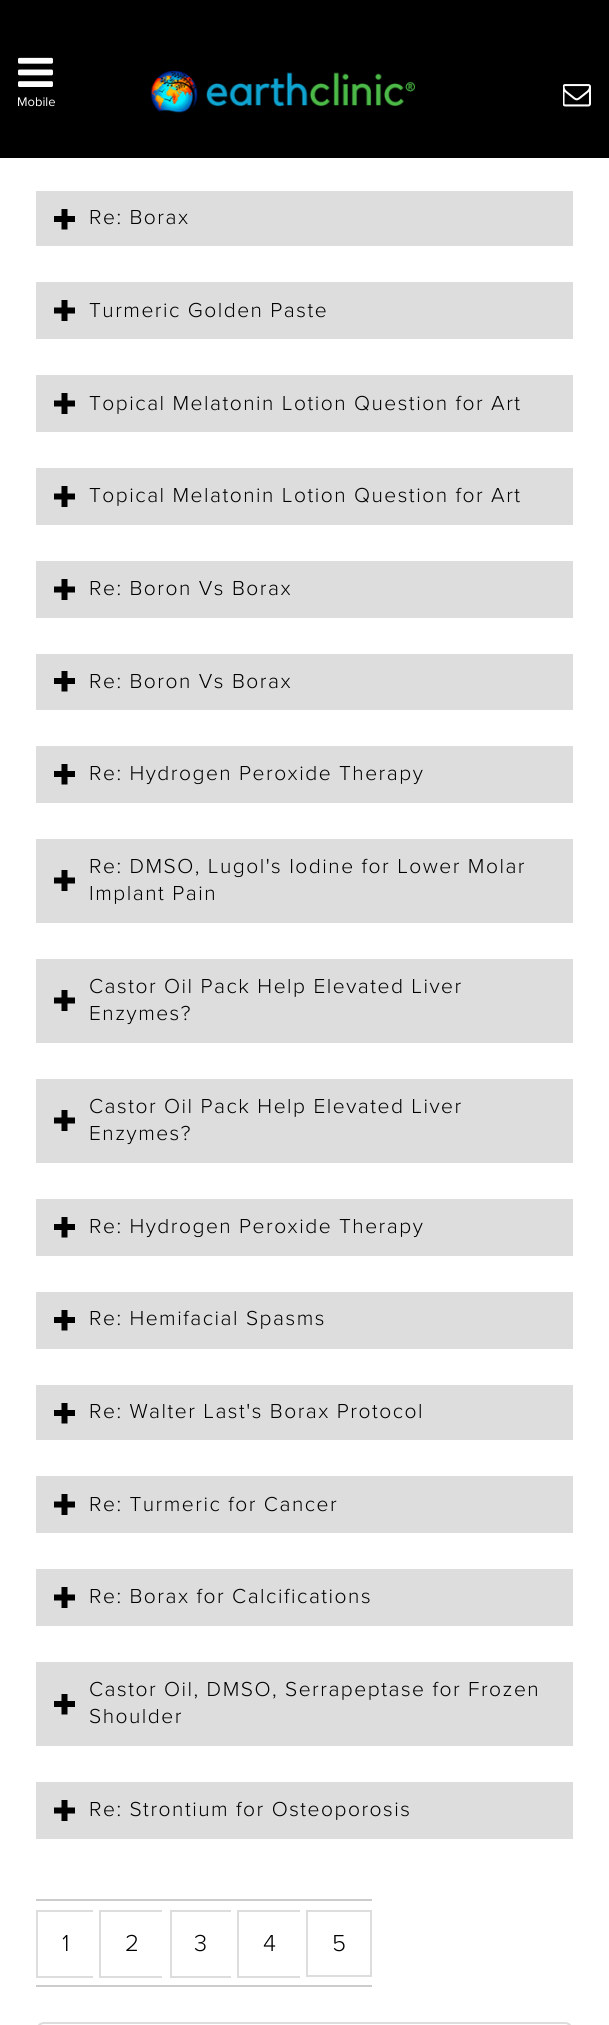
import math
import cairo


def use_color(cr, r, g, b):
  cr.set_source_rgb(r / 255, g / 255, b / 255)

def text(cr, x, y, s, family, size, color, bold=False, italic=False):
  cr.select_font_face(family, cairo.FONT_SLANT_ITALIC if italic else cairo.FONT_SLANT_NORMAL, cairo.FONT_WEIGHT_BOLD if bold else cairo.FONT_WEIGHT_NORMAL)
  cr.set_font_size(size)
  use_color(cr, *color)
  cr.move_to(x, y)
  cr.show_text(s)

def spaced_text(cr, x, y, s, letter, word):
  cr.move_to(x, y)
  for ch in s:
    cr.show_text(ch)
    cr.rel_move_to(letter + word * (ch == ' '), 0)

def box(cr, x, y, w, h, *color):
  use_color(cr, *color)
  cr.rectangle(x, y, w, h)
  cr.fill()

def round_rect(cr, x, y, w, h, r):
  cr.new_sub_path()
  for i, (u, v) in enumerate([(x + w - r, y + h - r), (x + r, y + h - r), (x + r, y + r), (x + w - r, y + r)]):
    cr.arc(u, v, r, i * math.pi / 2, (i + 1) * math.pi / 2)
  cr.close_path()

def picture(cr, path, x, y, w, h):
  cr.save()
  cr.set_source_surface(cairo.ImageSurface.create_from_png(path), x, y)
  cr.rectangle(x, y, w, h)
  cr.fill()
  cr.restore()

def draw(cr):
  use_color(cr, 255, 255, 255)
  cr.paint()
  box(cr, 0, 0, 609, 158, 0, 0, 0)
  picture(cr, "img_01.png", 18, 57, 35, 30)
  picture(cr, "img_02.png", 150, 70, 265, 47)
  picture(cr, "img_03.png", 563, 84, 28, 23)
  box(cr, 36, 191, 537, 55, 221, 221, 221)
  picture(cr, "img_04.png", 54, 209, 21, 21)
  box(cr, 36, 282, 537, 57, 221, 221, 221)
  picture(cr, "img_05.png", 54, 300, 21, 21)
  box(cr, 36, 375, 537, 57, 221, 221, 221)
  picture(cr, "img_05.png", 54, 393, 21, 21)
  box(cr, 36, 468, 537, 57, 221, 221, 221)
  picture(cr, "img_05.png", 54, 486, 21, 21)
  box(cr, 36, 561, 537, 57, 221, 221, 221)
  picture(cr, "img_05.png", 54, 579, 21, 21)
  box(cr, 36, 654, 537, 56, 221, 221, 221)
  picture(cr, "img_04.png", 54, 671, 21, 21)
  box(cr, 36, 746, 537, 57, 221, 221, 221)
  picture(cr, "img_04.png", 54, 764, 21, 21)
  box(cr, 36, 839, 537, 84, 221, 221, 221)
  picture(cr, "img_05.png", 54, 870, 21, 21)
  box(cr, 36, 959, 537, 84, 221, 221, 221)
  picture(cr, "img_05.png", 54, 990, 21, 21)
  box(cr, 36, 1079, 537, 84, 221, 221, 221)
  picture(cr, "img_05.png", 54, 1110, 21, 21)
  box(cr, 36, 1199, 537, 57, 221, 221, 221)
  picture(cr, "img_04.png", 54, 1217, 21, 21)
  box(cr, 36, 1292, 537, 57, 221, 221, 221)
  picture(cr, "img_04.png", 54, 1310, 21, 21)
  box(cr, 36, 1385, 537, 55, 221, 221, 221)
  picture(cr, "img_04.png", 54, 1403, 21, 21)
  box(cr, 36, 1476, 537, 57, 221, 221, 221)
  picture(cr, "img_05.png", 54, 1494, 21, 21)
  box(cr, 36, 1569, 537, 57, 221, 221, 221)
  picture(cr, "img_05.png", 54, 1587, 21, 21)
  box(cr, 36, 1662, 537, 84, 221, 221, 221)
  picture(cr, "img_04.png", 54, 1694, 21, 21)
  box(cr, 36, 1782, 537, 57, 221, 221, 221)
  picture(cr, "img_05.png", 54, 1800, 21, 21)
  box(cr, 36, 1899, 336, 2, 204, 204, 204)
  box(cr, 36, 1910, 57, 2, 221, 221, 221)
  box(cr, 36, 1976, 57, 2, 221, 221, 221)
  box(cr, 36, 1910, 2, 67, 221, 221, 221)
  box(cr, 99, 1910, 63, 2, 221, 221, 221)
  box(cr, 99, 1976, 63, 2, 221, 221, 221)
  box(cr, 99, 1910, 2, 67, 221, 221, 221)
  box(cr, 170, 1910, 61, 2, 221, 221, 221)
  box(cr, 170, 1976, 61, 2, 221, 221, 221)
  box(cr, 170, 1910, 2, 67, 221, 221, 221)
  box(cr, 237, 1910, 63, 2, 221, 221, 221)
  box(cr, 237, 1976, 63, 2, 221, 221, 221)
  box(cr, 237, 1910, 2, 67, 221, 221, 221)
  cr.rectangle(307, 1911, 64, 65)
  cr.stroke()
  box(cr, 36, 1985, 336, 2, 204, 204, 204)
  round_rect(cr, 37, 2023, 535, 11, 7)
  use_color(cr, 221, 221, 221)
  cr.stroke()
  text(cr, 17, 106, "Mobile", "Proxima Nova", 13, (255, 255, 255))
  cr.select_font_face("Proxima Nova Light")
  cr.set_font_size(21)
  use_color(cr, 0, 0, 0)
  spaced_text(cr, 89, 224, "Re: Borax", 1.5, 0)
  spaced_text(cr, 89, 317, "Turmeric Golden Paste", 1.5, 0)
  spaced_text(cr, 89, 410, "Topical Melatonin Lotion Question for Art", 1.5, 0)
  spaced_text(cr, 89, 502, "Topical Melatonin Lotion Question for Art", 1.5, 0)
  spaced_text(cr, 89, 595, "Re: Boron Vs Borax", 1.5, 0)
  spaced_text(cr, 89, 688, "Re: Boron Vs Borax", 1.5, 0)
  spaced_text(cr, 89, 780, "Re: Hydrogen Peroxide Therapy", 1.5, 0)
  spaced_text(cr, 89, 873, "Re: DMSO, Lugol's Iodine for Lower Molar", 1.5, 0)
  spaced_text(cr, 89, 900, "Implant Pain", 1.5, 0)
  spaced_text(cr, 89, 993, "Castor Oil Pack Help Elevated Liver", 1.5, 0)
  spaced_text(cr, 89, 1020, "Enzymes?", 1.5, 0)
  spaced_text(cr, 89, 1113, "Castor Oil Pack Help Elevated Liver", 1.5, 0)
  spaced_text(cr, 89, 1140, "Enzymes?", 1.5, 0)
  spaced_text(cr, 89, 1233, "Re: Hydrogen Peroxide Therapy", 1.5, 0)
  spaced_text(cr, 89, 1325, "Re: Hemifacial Spasms", 1.5, 0)
  spaced_text(cr, 89, 1418, "Re: Walter Last's Borax Protocol", 1.5, 0)
  spaced_text(cr, 89, 1511, "Re: Turmeric for Cancer", 1.5, 0)
  spaced_text(cr, 89, 1603, "Re: Borax for Calcifications", 1.5, 0)
  spaced_text(cr, 89, 1696, "Castor Oil, DMSO, Serrapeptase for Frozen", 1.5, 0)
  spaced_text(cr, 89, 1723, "Shoulder", 1.5, 0)
  spaced_text(cr, 89, 1816, "Re: Strontium for Osteoporosis", 1.5, 0)
  text(cr, 62, 1951, "1", "Proxima Nova Light", 24, (0, 0, 0))
  text(cr, 125, 1951, "2", "Proxima Nova Light", 24, (0, 0, 0))
  text(cr, 194, 1951, "3", "Proxima Nova Light", 24, (0, 0, 0))
  text(cr, 263, 1951, "4", "Proxima Nova Light", 24, (0, 0, 0))
  text(cr, 332, 1951, "5", "Proxima Nova Light", 24, (0, 0, 0))


surface = cairo.ImageSurface(cairo.FORMAT_RGB24, 609, 2025)
cr = cairo.Context(surface)
options = cairo.FontOptions()
options.set_hint_metrics(cairo.HINT_METRICS_OFF)
options.set_hint_style(cairo.HINT_STYLE_NONE)
cr.set_font_options(options)
cr.set_miter_limit(4)
draw(cr)
surface.write_to_png("out.png")
